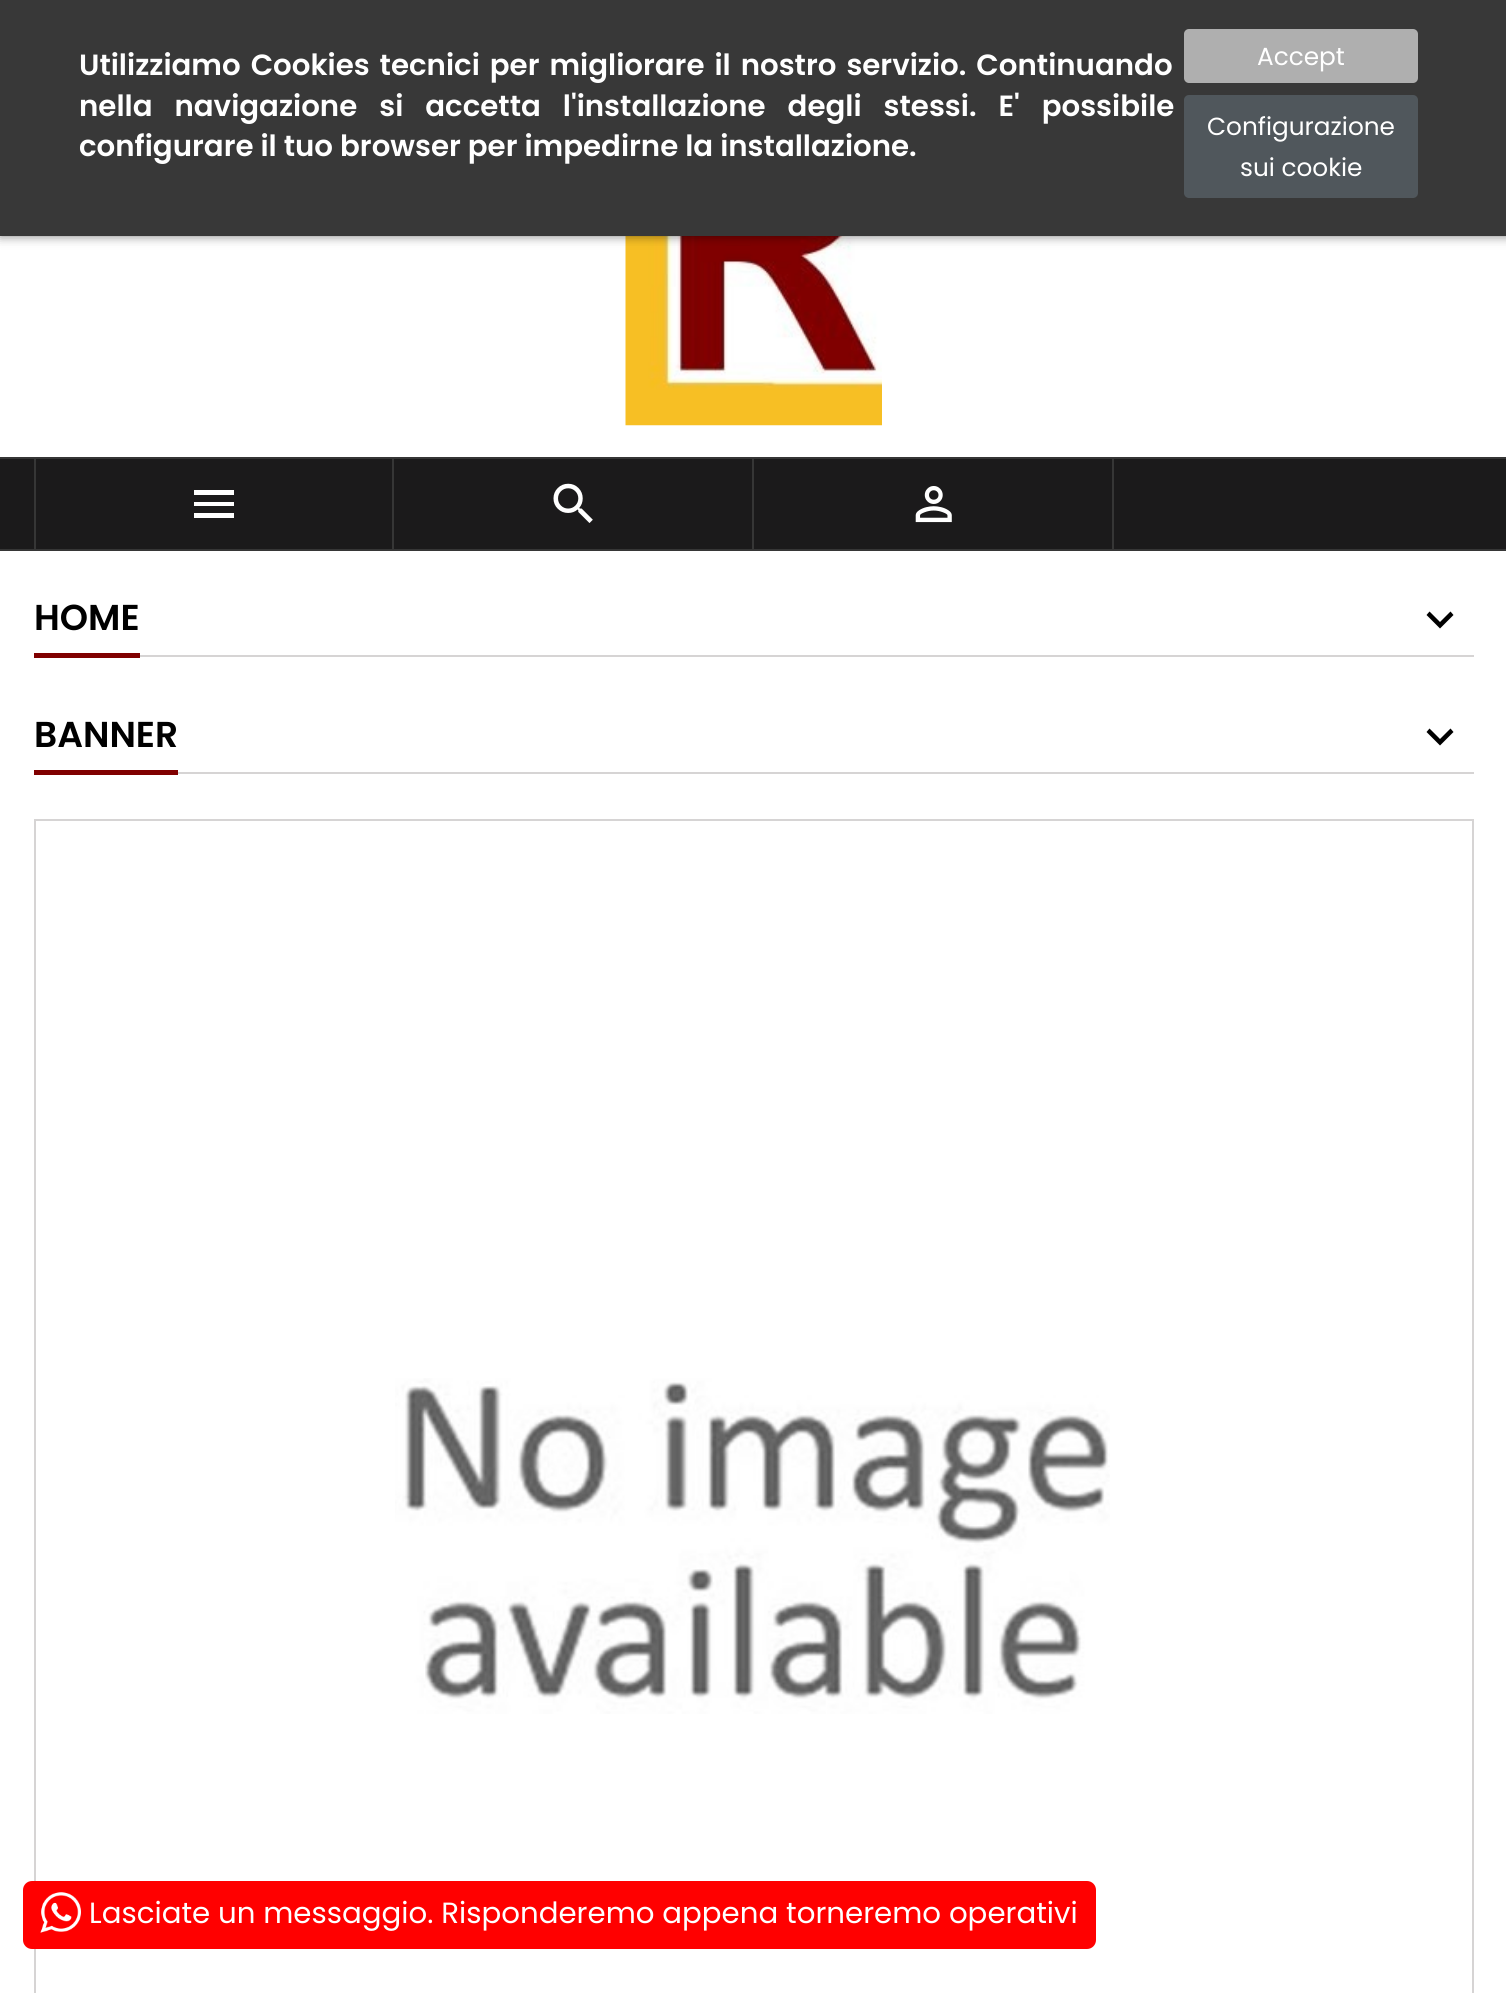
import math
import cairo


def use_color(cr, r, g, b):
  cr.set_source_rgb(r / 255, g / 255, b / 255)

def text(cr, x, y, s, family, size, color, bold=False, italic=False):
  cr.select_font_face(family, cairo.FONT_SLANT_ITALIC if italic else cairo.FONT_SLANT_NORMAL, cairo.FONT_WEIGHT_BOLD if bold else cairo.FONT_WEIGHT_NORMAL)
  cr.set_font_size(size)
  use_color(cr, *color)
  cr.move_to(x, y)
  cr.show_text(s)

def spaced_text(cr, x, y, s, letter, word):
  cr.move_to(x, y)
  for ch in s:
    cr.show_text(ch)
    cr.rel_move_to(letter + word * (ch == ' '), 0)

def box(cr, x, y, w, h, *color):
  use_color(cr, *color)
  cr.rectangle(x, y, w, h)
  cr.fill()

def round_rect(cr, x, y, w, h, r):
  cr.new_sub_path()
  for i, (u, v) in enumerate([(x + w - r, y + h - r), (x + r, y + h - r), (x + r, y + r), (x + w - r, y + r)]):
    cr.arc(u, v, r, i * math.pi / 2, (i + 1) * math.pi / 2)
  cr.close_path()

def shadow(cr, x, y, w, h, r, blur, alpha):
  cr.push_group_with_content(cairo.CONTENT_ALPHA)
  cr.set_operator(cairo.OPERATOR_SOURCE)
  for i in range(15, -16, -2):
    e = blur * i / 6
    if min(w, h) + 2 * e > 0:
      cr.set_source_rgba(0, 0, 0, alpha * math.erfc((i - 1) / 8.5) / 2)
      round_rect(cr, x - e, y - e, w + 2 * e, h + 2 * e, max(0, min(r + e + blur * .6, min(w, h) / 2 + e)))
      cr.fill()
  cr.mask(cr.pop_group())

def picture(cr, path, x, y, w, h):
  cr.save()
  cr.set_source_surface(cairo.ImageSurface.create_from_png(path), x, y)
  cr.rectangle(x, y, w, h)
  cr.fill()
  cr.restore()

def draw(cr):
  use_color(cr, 255, 255, 255)
  cr.paint()
  picture(cr, "img_01.png", 625, 236, 257, 190)
  use_color(cr, 0, 0, 0)
  shadow(cr, 0, 0, 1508, 236, 0, 5.5, 0.5)
  box(cr, 0, 0, 1506, 236, 56, 56, 56)
  use_color(cr, 175, 175, 175)
  round_rect(cr, 1184, 29, 234, 54, 5)
  cr.fill()
  use_color(cr, 80, 87, 92)
  round_rect(cr, 1184, 95, 234, 103, 5)
  cr.fill()
  box(cr, 0, 459, 1506, 90, 27, 26, 27)
  box(cr, 0, 457, 1506, 2, 54, 54, 54)
  box(cr, 0, 549, 1506, 2, 54, 54, 54)
  box(cr, 392, 459, 2, 90, 54, 54, 54)
  box(cr, 34, 459, 2, 90, 54, 54, 54)
  use_color(cr, 255, 255, 255)
  cr.new_path()
  cr.move_to(194, 490)
  cr.line_to(234, 490)
  cr.line_to(234, 495)
  cr.line_to(194, 495)
  cr.close_path()
  cr.move_to(194, 506)
  cr.line_to(194, 502)
  cr.line_to(234, 502)
  cr.line_to(234, 506)
  cr.close_path()
  cr.move_to(194, 518)
  cr.line_to(194, 513)
  cr.line_to(234, 513)
  cr.line_to(234, 518)
  cr.close_path()
  cr.fill()
  box(cr, 752, 459, 2, 90, 54, 54, 54)
  picture(cr, "img_02.png", 553, 483, 40, 40)
  box(cr, 1112, 459, 2, 90, 54, 54, 54)
  picture(cr, "img_03.png", 915, 486, 37, 37)
  box(cr, 140, 655, 1334, 2, 214, 212, 212)
  box(cr, 34, 653, 106, 5, 128, 0, 0)
  use_color(cr, 0, 0, 0)
  cr.new_path()
  cr.move_to(1429.5, 611.5)
  cr.line_to(1440, 622)
  cr.line_to(1450.5, 611.5)
  cr.line_to(1453.5, 615)
  cr.line_to(1440, 628.5)
  cr.line_to(1426.5, 615)
  cr.close_path()
  cr.fill()
  box(cr, 178, 772, 1296, 2, 214, 212, 212)
  box(cr, 34, 770, 144, 5, 128, 0, 0)
  use_color(cr, 0, 0, 0)
  cr.new_path()
  cr.move_to(1429.5, 728.5)
  cr.line_to(1440, 739)
  cr.line_to(1450.5, 728.5)
  cr.line_to(1453.5, 732)
  cr.line_to(1440, 745.5)
  cr.line_to(1426.5, 732)
  cr.close_path()
  cr.fill()
  cr.rectangle(35, 820, 1438, 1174)
  use_color(cr, 214, 212, 212)
  cr.stroke()
  picture(cr, "img_04.png", 395, 1378, 715, 336)
  use_color(cr, 255, 0, 0)
  round_rect(cr, 23, 1881, 1073, 68, 9)
  cr.fill()
  picture(cr, "img_05.png", 40, 1892, 41, 41)
  cr.select_font_face("Poppins SemiBold")
  cr.set_font_size(29.25)
  use_color(cr, 255, 255, 255)
  spaced_text(cr, 79, 75, "Utilizziamo Cookies tecnici per migliorare il nostro servizio. Continuando", 0, 3)
  spaced_text(cr, 79, 116, "nella navigazione si accetta l'installazione degli stessi. E' possibile", 0, 15)
  text(cr, 79, 156, "configurare il tuo browser per impedirne la installazione.", "Poppins SemiBold", 29.25, (255, 255, 255))
  text(cr, 1257, 65, "Accept", "Poppins", 24.75, (255, 255, 255))
  text(cr, 1207, 135, "Configurazione", "Poppins", 24.75, (255, 255, 255))
  text(cr, 1240, 176, "sui cookie", "Poppins", 24.75, (255, 255, 255))
  text(cr, 34, 630, "HOME", "Poppins SemiBold", 36, (0, 0, 0))
  text(cr, 34, 747, "BANNER", "Poppins SemiBold", 36, (0, 0, 0))
  text(cr, 89, 1923, "Lasciate un messaggio. Risponderemo appena torneremo operativi", "Poppins", 29.25, (255, 255, 255))


surface = cairo.ImageSurface(cairo.FORMAT_RGB24, 1506, 1993)
cr = cairo.Context(surface)
options = cairo.FontOptions()
options.set_hint_metrics(cairo.HINT_METRICS_OFF)
options.set_hint_style(cairo.HINT_STYLE_NONE)
cr.set_font_options(options)
cr.set_miter_limit(4)
draw(cr)
surface.write_to_png("out.png")
